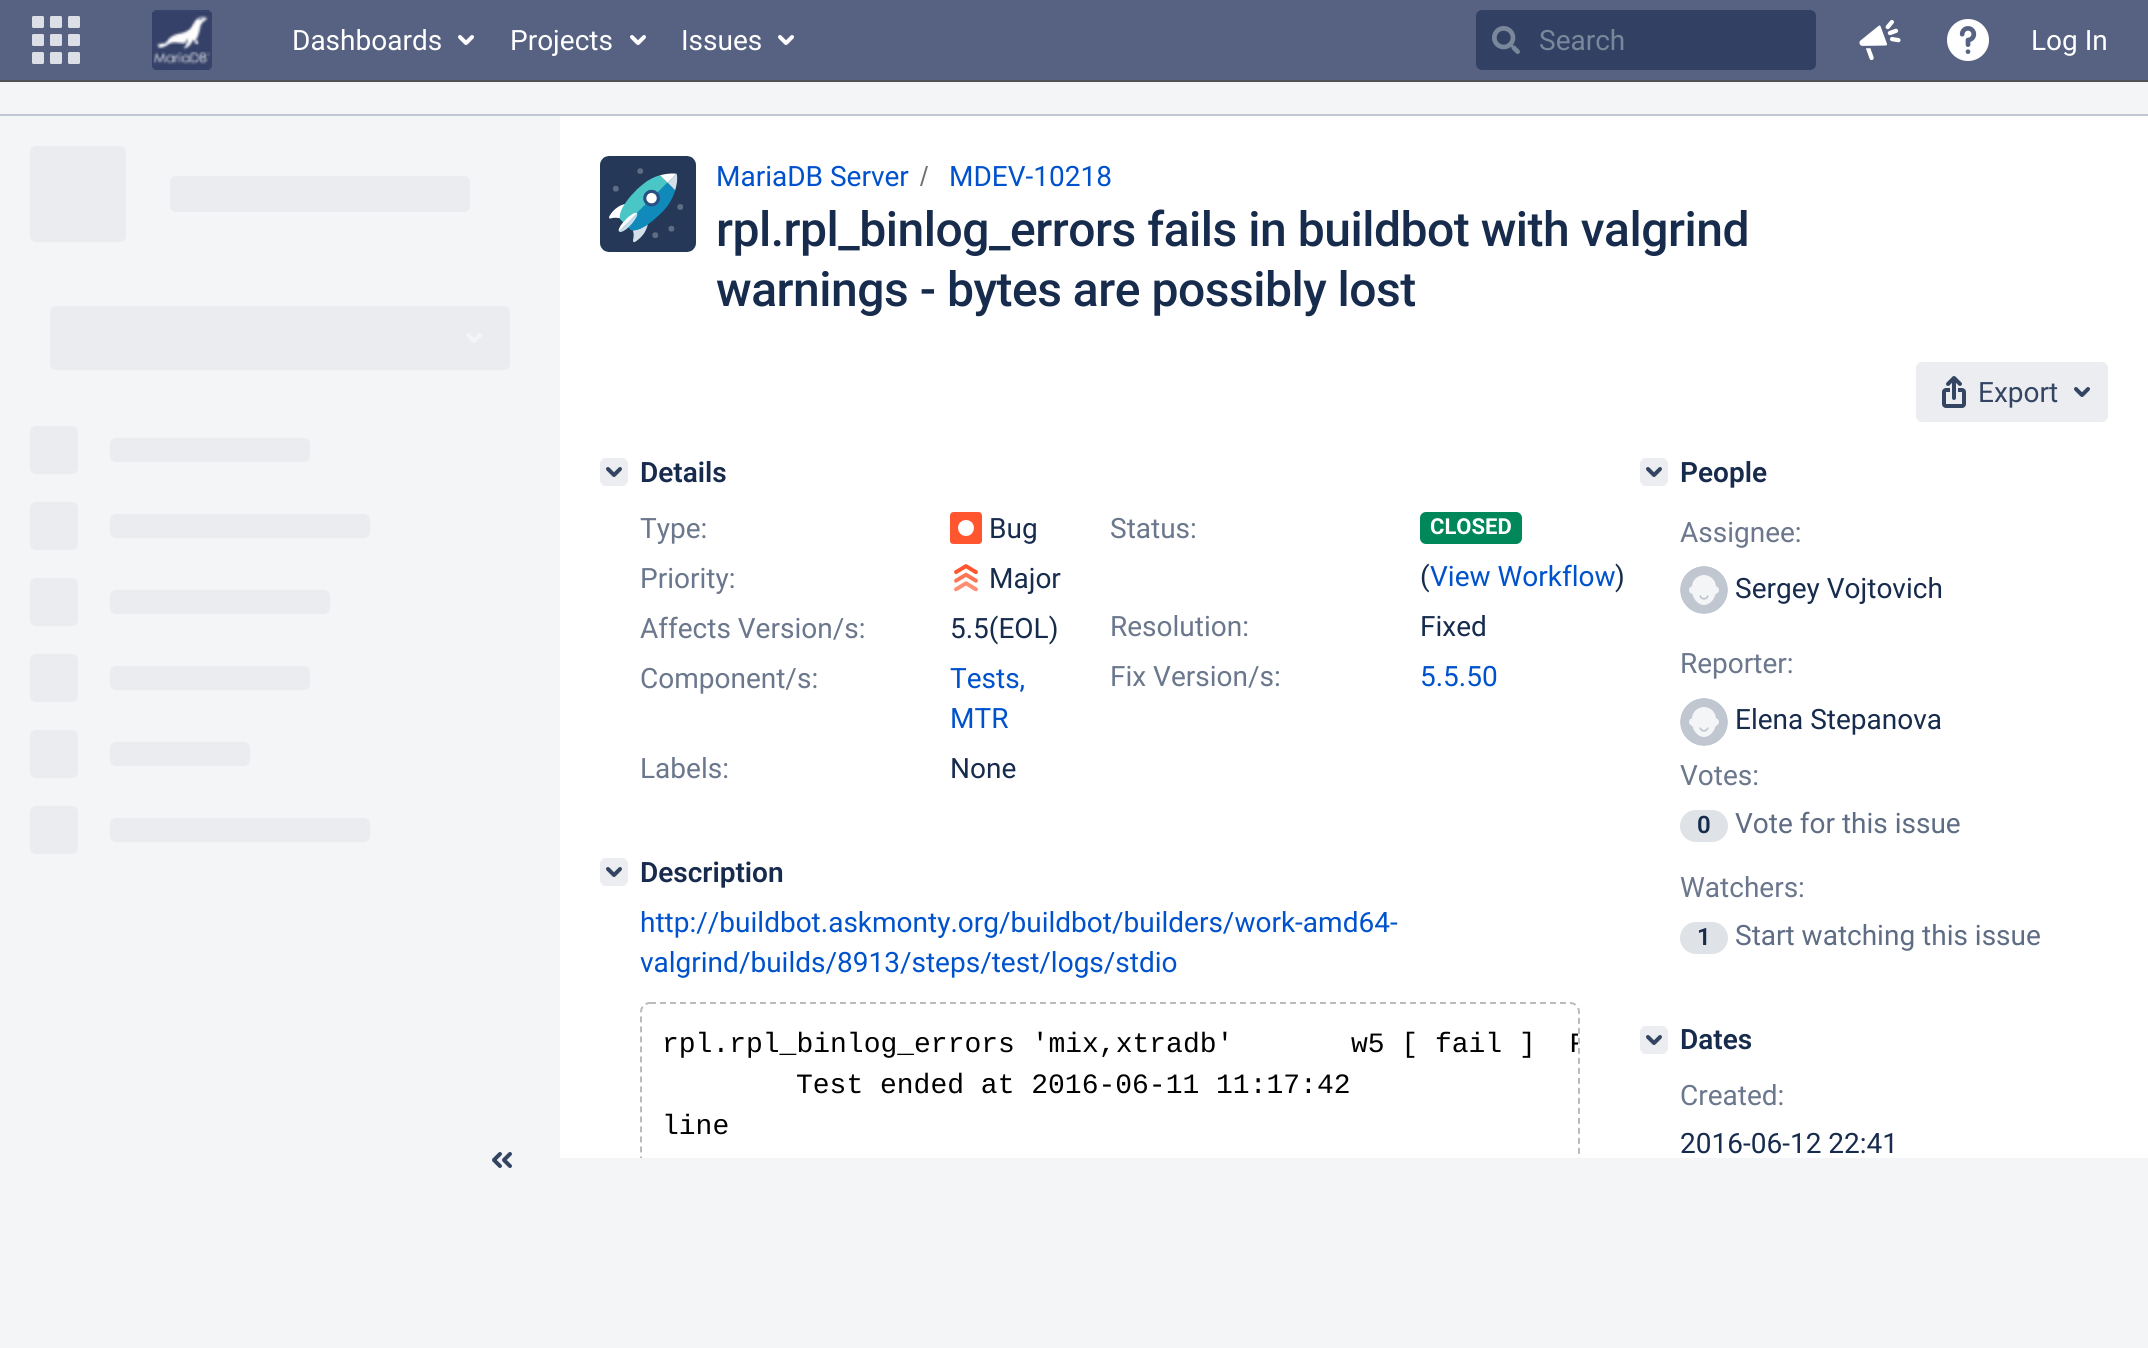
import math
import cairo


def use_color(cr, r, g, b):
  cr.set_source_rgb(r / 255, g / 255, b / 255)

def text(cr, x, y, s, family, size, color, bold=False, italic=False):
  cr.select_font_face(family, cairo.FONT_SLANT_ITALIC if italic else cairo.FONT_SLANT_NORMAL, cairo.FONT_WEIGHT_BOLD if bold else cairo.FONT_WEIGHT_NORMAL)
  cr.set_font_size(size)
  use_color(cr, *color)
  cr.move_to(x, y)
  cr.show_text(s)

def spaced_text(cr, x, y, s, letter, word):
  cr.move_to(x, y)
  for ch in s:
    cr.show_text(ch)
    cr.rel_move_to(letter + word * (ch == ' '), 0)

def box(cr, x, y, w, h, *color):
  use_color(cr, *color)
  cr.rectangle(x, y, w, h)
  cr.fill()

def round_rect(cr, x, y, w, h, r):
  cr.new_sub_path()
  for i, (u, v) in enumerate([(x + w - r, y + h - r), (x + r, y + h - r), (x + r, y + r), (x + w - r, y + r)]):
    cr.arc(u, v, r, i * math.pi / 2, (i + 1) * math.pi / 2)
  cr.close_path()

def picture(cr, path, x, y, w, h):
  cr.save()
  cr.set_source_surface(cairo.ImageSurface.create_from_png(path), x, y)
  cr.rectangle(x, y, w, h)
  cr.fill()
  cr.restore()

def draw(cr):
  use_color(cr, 244, 245, 247)
  cr.paint()
  box(cr, 0, 0, 2148, 80, 87, 97, 129)
  box(cr, 0, 80, 2148, 2, 82, 82, 84)
  picture(cr, "img_01.png", 32, 16, 48, 48)
  picture(cr, "img_02.png", 152, 10, 60, 60)
  picture(cr, "img_03.png", 458, 35, 16, 10)
  picture(cr, "img_03.png", 630, 35, 16, 10)
  picture(cr, "img_03.png", 778, 35, 16, 10)
  use_color(cr, 50, 65, 99)
  round_rect(cr, 1476, 10, 340, 60, 6)
  cr.fill()
  picture(cr, "img_04.png", 1492, 26, 28, 28)
  picture(cr, "img_05.png", 1859, 20, 42, 41)
  picture(cr, "img_06.png", 1947, 19, 42, 42)
  box(cr, 0, 114, 2148, 2, 193, 199, 208)
  picture(cr, "img_07.png", 30, 146, 480, 708)
  picture(cr, "img_08.png", 492, 1152, 20, 16)
  box(cr, 560, 116, 1588, 1042, 255, 255, 255)
  picture(cr, "img_09.png", 600, 156, 96, 96)
  use_color(cr, 112, 112, 112)
  cr.new_path()
  cr.move_to(922, 186)
  cr.line_to(928, 166)
  cr.line_to(926, 166)
  cr.line_to(920, 186)
  cr.close_path()
  cr.fill()
  use_color(cr, 235, 237, 240)
  round_rect(cr, 1916, 362, 192, 60, 6)
  cr.fill()
  picture(cr, "img_10.png", 1942, 376, 24, 32)
  picture(cr, "img_11.png", 2074, 387, 16, 10)
  round_rect(cr, 600, 458, 28, 28, 6)
  cr.fill()
  picture(cr, "img_12.png", 606, 467, 16, 10)
  picture(cr, "img_13.png", 950, 512, 32, 32)
  use_color(cr, 0, 135, 90)
  round_rect(cr, 1420, 512, 102, 32, 6)
  cr.fill()
  picture(cr, "img_14.png", 954, 564, 24, 28)
  use_color(cr, 235, 237, 240)
  round_rect(cr, 600, 858, 28, 28, 6)
  cr.fill()
  picture(cr, "img_12.png", 606, 867, 16, 10)
  cr.save()
  cr.rectangle(640, 902, 940, 256)
  cr.clip()
  cr.new_path()
  cr.move_to(650, 1003)
  cr.line_to(1570, 1003)
  cr.curve_to(1575, 1003, 1579, 1007, 1579, 1012)
  cr.line_to(1579, 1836)
  cr.curve_to(1579, 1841, 1575, 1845, 1570, 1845)
  cr.line_to(650, 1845)
  cr.curve_to(645, 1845, 641, 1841, 641, 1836)
  cr.line_to(641, 1012)
  cr.curve_to(641, 1007, 645, 1003, 650, 1003)
  cr.close_path()
  use_color(cr, 187, 187, 187)
  cr.set_dash([6, 4])
  cr.stroke()
  cr.restore()
  round_rect(cr, 1640, 458, 28, 28, 6)
  cr.fill()
  picture(cr, "img_12.png", 1646, 467, 16, 10)
  picture(cr, "img_15.png", 1680, 566, 48, 48)
  picture(cr, "img_15.png", 1680, 698, 48, 48)
  use_color(cr, 223, 226, 230)
  round_rect(cr, 1680, 810, 48, 32, 16)
  cr.fill()
  round_rect(cr, 1680, 922, 48, 32, 16)
  cr.fill()
  use_color(cr, 235, 237, 240)
  round_rect(cr, 1640, 1026, 28, 28, 6)
  cr.fill()
  picture(cr, "img_12.png", 1646, 1035, 16, 10)
  text(cr, 292, 50, "Dashboards", "Roboto", 28, (255, 255, 255))
  text(cr, 510, 50, "Projects", "Roboto", 28, (255, 255, 255))
  text(cr, 681, 50, "Issues", "Roboto", 28, (255, 255, 255))
  text(cr, 1539, 50, "Search", "Roboto", 28, (122, 134, 154))
  text(cr, 2031, 50, "Log In", "Roboto", 28, (255, 255, 255))
  text(cr, 716, 186, "MariaDB Server", "Roboto", 28, (0, 82, 204))
  text(cr, 949, 186, "MDEV-10218", "Roboto", 28, (0, 82, 204))
  cr.select_font_face("Roboto Medium")
  cr.set_font_size(48)
  use_color(cr, 23, 43, 77)
  spaced_text(cr, 716, 246, "rpl.rpl_binlog_errors fails in buildbot with valgrind", -0.48, 0)
  spaced_text(cr, 716, 306, "warnings - bytes are possibly lost", -0.48, 0)
  text(cr, 1978, 402, "Export", "Roboto", 28, (52, 69, 99))
  text(cr, 640, 482, "Details", "Roboto SemiBold", 28, (23, 43, 77))
  text(cr, 640, 538, "Type:", "Roboto", 28, (107, 119, 140))
  text(cr, 989, 538, "Bug", "Roboto", 28, (23, 43, 77))
  text(cr, 1110, 538, "Status:", "Roboto", 28, (107, 119, 140))
  text(cr, 1430, 534, "CLOSED", "Roboto", 22, (255, 255, 255), bold=True)
  text(cr, 1420, 586, "(", "Roboto", 28, (23, 43, 77))
  text(cr, 1430, 586, "View Workflow", "Roboto", 28, (0, 82, 204))
  text(cr, 1615, 586, ")", "Roboto", 28, (23, 43, 77))
  text(cr, 640, 588, "Priority:", "Roboto", 28, (107, 119, 140))
  text(cr, 989, 588, "Major", "Roboto", 28, (23, 43, 77))
  text(cr, 640, 638, "Affects Version/s:", "Roboto", 28, (107, 119, 140))
  text(cr, 950, 638, "5.5(EOL)", "Roboto", 28, (23, 43, 77))
  text(cr, 1110, 636, "Resolution:", "Roboto", 28, (107, 119, 140))
  text(cr, 1420, 636, "Fixed", "Roboto", 28, (23, 43, 77))
  text(cr, 640, 688, "Component/s:", "Roboto", 28, (107, 119, 140))
  text(cr, 950, 688, "Tests,", "Roboto", 28, (0, 82, 204))
  text(cr, 950, 728, "MTR", "Roboto", 28, (0, 82, 204))
  text(cr, 1110, 686, "Fix Version/s:", "Roboto", 28, (107, 119, 140))
  text(cr, 1420, 686, "5.5.50", "Roboto", 28, (0, 82, 204))
  text(cr, 640, 778, "Labels:", "Roboto", 28, (107, 119, 140))
  text(cr, 950, 778, "None", "Roboto", 28, (23, 43, 77))
  text(cr, 640, 882, "Description", "Roboto SemiBold", 28, (23, 43, 77))
  text(cr, 640, 932, "http://buildbot.askmonty.org/buildbot/builders/work-amd64-", "Roboto", 28, (0, 82, 204))
  text(cr, 640, 972, "valgrind/builds/8913/steps/test/logs/stdio", "Roboto", 28, (0, 82, 204))
  cr.save()
  round_rect(cr, 642, 1004, 936, 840, 8)
  cr.clip()
  text(cr, 662, 1052, "rpl.rpl_binlog_errors 'mix,xtradb'       w5 [ fail ]  F", "Liberation Mono", 28, (0, 0, 0))
  cr.restore()
  text(cr, 796, 1093, "Test ended at 2016-06-11 11:17:42", "Liberation Mono", 28, (0, 0, 0))
  text(cr, 662, 1134, "line", "Liberation Mono", 28, (0, 0, 0))
  text(cr, 1680, 482, "People", "Roboto SemiBold", 28, (23, 43, 77))
  text(cr, 1680, 542, "Assignee:", "Roboto", 28, (107, 119, 140))
  text(cr, 1735, 598, "Sergey Vojtovich", "Roboto", 28, (23, 43, 77))
  text(cr, 1680, 673, "Reporter:", "Roboto", 28, (107, 119, 140))
  text(cr, 1735, 729, "Elena Stepanova", "Roboto", 28, (23, 43, 77))
  text(cr, 1680, 785, "Votes:", "Roboto", 28, (107, 119, 140))
  text(cr, 1697, 833, "0", "Roboto SemiBold", 24, (23, 43, 77))
  text(cr, 1735, 833, "Vote for this issue", "Roboto", 28, (94, 108, 132))
  text(cr, 1680, 897, "Watchers:", "Roboto", 28, (107, 119, 140))
  text(cr, 1697, 945, "1", "Roboto SemiBold", 24, (23, 43, 77))
  text(cr, 1735, 945, "Start watching this issue", "Roboto", 28, (94, 108, 132))
  text(cr, 1680, 1049, "Dates", "Roboto SemiBold", 28, (23, 43, 77))
  text(cr, 1680, 1105, "Created:", "Roboto", 28, (107, 119, 140))
  text(cr, 1680, 1153, "2016-06-12 22:41", "Roboto", 28, (23, 43, 77))


surface = cairo.ImageSurface(cairo.FORMAT_RGB24, 2148, 1348)
cr = cairo.Context(surface)
options = cairo.FontOptions()
options.set_hint_metrics(cairo.HINT_METRICS_OFF)
options.set_hint_style(cairo.HINT_STYLE_NONE)
cr.set_font_options(options)
cr.set_miter_limit(4)
draw(cr)
surface.write_to_png("out.png")
